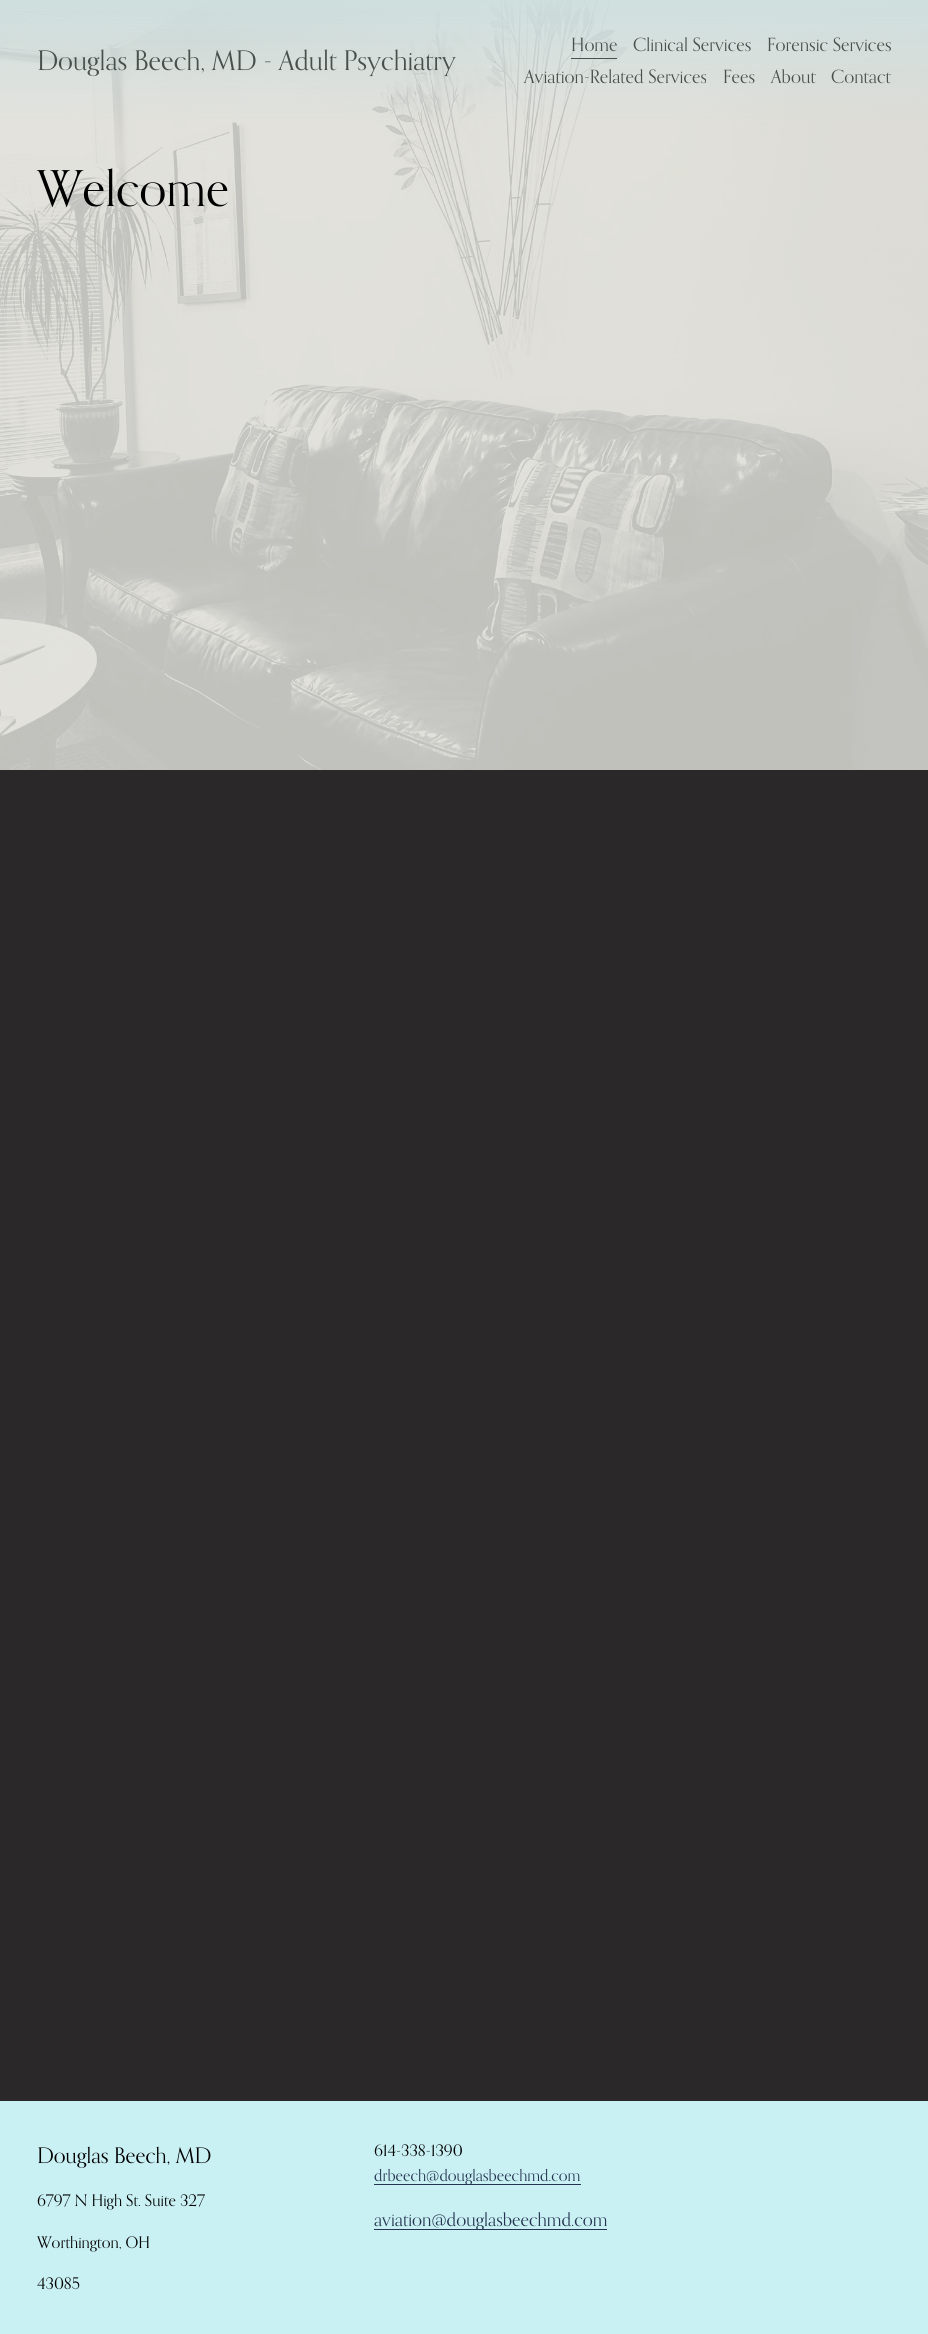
import math
import cairo


def use_color(cr, r, g, b):
  cr.set_source_rgb(r / 255, g / 255, b / 255)

def text(cr, x, y, s, family, size, color, bold=False, italic=False):
  cr.select_font_face(family, cairo.FONT_SLANT_ITALIC if italic else cairo.FONT_SLANT_NORMAL, cairo.FONT_WEIGHT_BOLD if bold else cairo.FONT_WEIGHT_NORMAL)
  cr.set_font_size(size)
  use_color(cr, *color)
  cr.move_to(x, y)
  cr.show_text(s)

def box(cr, x, y, w, h, *color):
  use_color(cr, *color)
  cr.rectangle(x, y, w, h)
  cr.fill()

def picture(cr, path, x, y, w, h):
  cr.save()
  cr.set_source_surface(cairo.ImageSurface.create_from_png(path), x, y)
  cr.rectangle(x, y, w, h)
  cr.fill()
  cr.restore()

def draw(cr):
  use_color(cr, 42, 40, 41)
  cr.paint()
  picture(cr, "img_01.png", 0, 0, 928, 770)
  box(cr, 571, 58, 46, 1, 73, 80, 76)
  box(cr, 0, 2101, 928, 233, 201, 240, 243)
  box(cr, 374, 2184, 207, 1, 37, 53, 81)
  box(cr, 374, 2229, 233, 1, 37, 53, 81)
  text(cr, 37, 70, "Douglas Beech, MD - Adult Psychiatry", "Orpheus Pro", 27.1, (73, 80, 76))
  text(cr, 571, 51, "Home", "Orpheus Pro", 18.25, (73, 80, 76))
  text(cr, 633, 51, "Clinical Services", "Orpheus Pro", 18.25, (73, 80, 76))
  text(cr, 767, 51, "Forensic Services", "Orpheus Pro", 18.25, (73, 80, 76))
  text(cr, 524, 83, "Aviation-Related Services", "Orpheus Pro", 18.25, (73, 80, 76))
  text(cr, 723, 83, "Fees", "Orpheus Pro", 18.25, (73, 80, 76))
  text(cr, 771, 83, "About", "Orpheus Pro", 18.25, (73, 80, 76))
  text(cr, 831, 83, "Contact", "Orpheus Pro", 18.25, (73, 80, 76))
  text(cr, 37, 206, "Welcome", "Orpheus Pro", 49.5, (0, 0, 0))
  text(cr, 37, 2163, "Douglas Beech, MD", "Orpheus Pro", 21.5, (0, 0, 0))
  text(cr, 37, 2206, "6797 N High St. Suite 327", "Orpheus Pro", 16, (0, 0, 0))
  text(cr, 37, 2248, "Worthington, OH", "Orpheus Pro", 16, (0, 0, 0))
  text(cr, 37, 2289, "43085", "Orpheus Pro", 16, (0, 0, 0))
  text(cr, 374, 2156, "614-338-1390", "Orpheus Pro", 16, (0, 0, 0))
  text(cr, 374, 2181, "drbeech@douglasbeechmd.com", "Orpheus Pro", 16, (37, 53, 81))
  text(cr, 374, 2226, "aviation@douglasbeechmd.com", "Orpheus Pro", 18.25, (37, 53, 81))


surface = cairo.ImageSurface(cairo.FORMAT_RGB24, 928, 2334)
cr = cairo.Context(surface)
options = cairo.FontOptions()
options.set_hint_metrics(cairo.HINT_METRICS_OFF)
options.set_hint_style(cairo.HINT_STYLE_NONE)
cr.set_font_options(options)
cr.set_miter_limit(4)
draw(cr)
surface.write_to_png("out.png")
